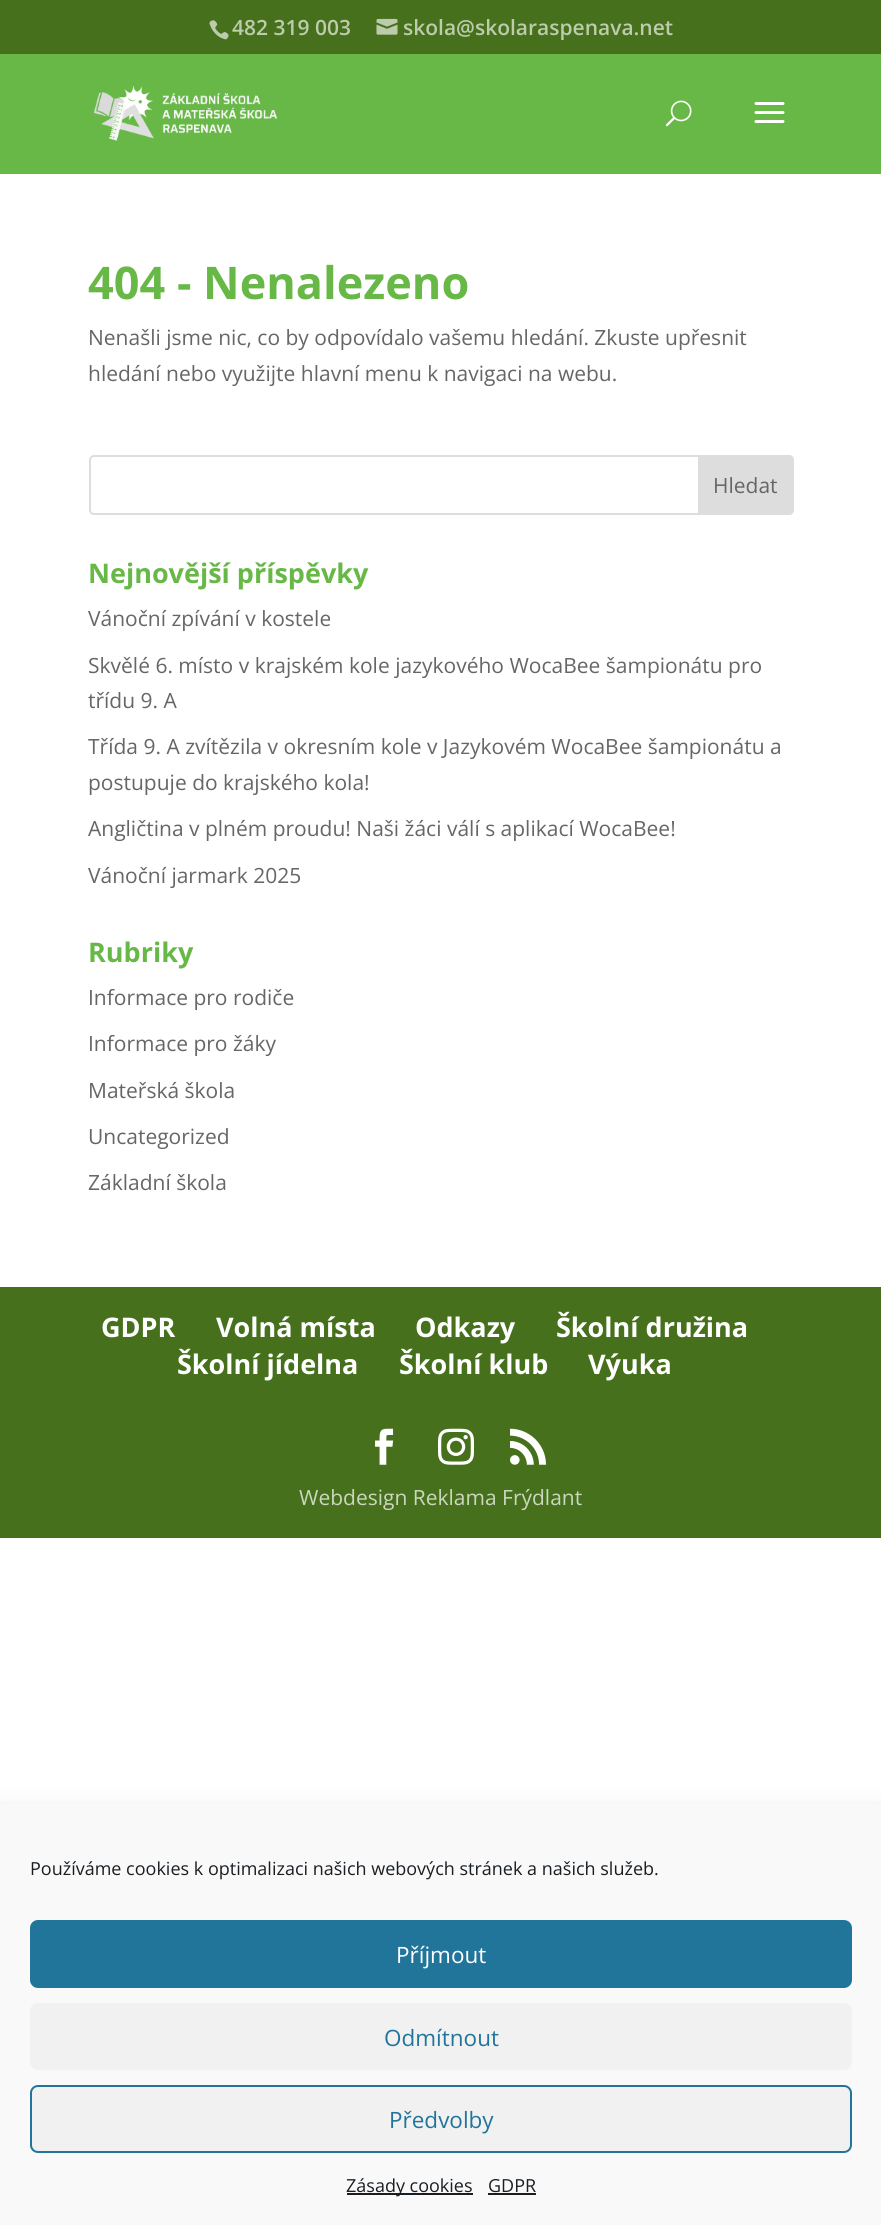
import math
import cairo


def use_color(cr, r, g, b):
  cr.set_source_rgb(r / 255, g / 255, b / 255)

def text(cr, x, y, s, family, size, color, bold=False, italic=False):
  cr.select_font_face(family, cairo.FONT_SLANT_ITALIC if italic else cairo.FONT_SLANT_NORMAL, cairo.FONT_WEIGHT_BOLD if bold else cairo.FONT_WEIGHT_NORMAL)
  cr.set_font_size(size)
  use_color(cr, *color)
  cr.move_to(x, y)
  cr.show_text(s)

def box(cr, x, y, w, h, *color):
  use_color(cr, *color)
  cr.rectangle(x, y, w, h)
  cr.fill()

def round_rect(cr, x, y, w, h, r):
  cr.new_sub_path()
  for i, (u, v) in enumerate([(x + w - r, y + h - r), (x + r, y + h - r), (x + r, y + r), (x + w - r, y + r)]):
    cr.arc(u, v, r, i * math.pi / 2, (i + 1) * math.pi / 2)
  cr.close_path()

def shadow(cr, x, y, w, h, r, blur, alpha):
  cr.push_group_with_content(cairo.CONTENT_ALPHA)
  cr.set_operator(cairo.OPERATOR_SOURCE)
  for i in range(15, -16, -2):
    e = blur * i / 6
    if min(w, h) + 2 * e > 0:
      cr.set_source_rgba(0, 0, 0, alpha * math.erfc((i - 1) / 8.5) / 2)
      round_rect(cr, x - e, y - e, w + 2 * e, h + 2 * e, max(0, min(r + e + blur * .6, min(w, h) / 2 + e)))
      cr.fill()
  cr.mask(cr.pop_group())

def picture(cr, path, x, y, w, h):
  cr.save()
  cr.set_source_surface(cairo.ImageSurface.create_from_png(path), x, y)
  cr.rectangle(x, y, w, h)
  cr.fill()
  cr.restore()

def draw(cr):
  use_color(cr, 255, 255, 255)
  cr.paint()
  box(cr, 0, 0, 881, 54, 70, 112, 28)
  picture(cr, "img_01.png", 209, 20, 20, 20)
  picture(cr, "img_02.png", 376, 18, 22, 17)
  box(cr, 0, 54, 881, 120, 104, 184, 72)
  picture(cr, "img_03.png", 93, 85, 185, 56)
  picture(cr, "img_04.png", 665, 100, 27, 27)
  picture(cr, "img_05.png", 754, 102, 31, 21)
  round_rect(cr, 90, 456, 703, 58, 4)
  use_color(cr, 221, 221, 221)
  cr.stroke()
  cr.new_path()
  cr.move_to(699, 456)
  cr.line_to(789, 456)
  cr.curve_to(791, 456, 793, 458, 793, 460)
  cr.line_to(793, 510)
  cr.curve_to(793, 512, 791, 514, 789, 514)
  cr.line_to(699, 514)
  cr.close_path()
  cr.fill_preserve()
  cr.stroke()
  box(cr, 0, 1287, 881, 251, 70, 112, 28)
  picture(cr, "img_06.png", 375, 1428, 19, 37)
  picture(cr, "img_07.png", 438, 1428, 36, 37)
  picture(cr, "img_08.png", 510, 1428, 36, 37)
  use_color(cr, 0, 0, 0)
  shadow(cr, 0, 1818, 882, 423, 0, 15, 0.19)
  box(cr, 0, 1804, 881, 421, 249, 249, 249)
  use_color(cr, 33, 117, 155)
  round_rect(cr, 31, 1921, 820, 66, 7)
  cr.fill_preserve()
  cr.stroke()
  use_color(cr, 241, 241, 241)
  round_rect(cr, 30, 2003, 822, 67, 8)
  cr.fill()
  round_rect(cr, 31, 2086, 820, 66, 7)
  cr.fill_preserve()
  use_color(cr, 33, 117, 155)
  cr.stroke()
  box(cr, 347, 2193, 126, 2, 25, 30, 35)
  box(cr, 488, 2193, 48, 2, 25, 30, 35)
  text(cr, 232, 35, "482 319 003", "Open Sans SemiBold", 21, (188, 204, 173))
  text(cr, 403, 35, "skola@skolaraspenava.net", "Open Sans SemiBold", 21, (188, 204, 173))
  text(cr, 88, 299, "404 - Nenalezeno", "Open Sans", 45, (104, 184, 72), bold=True)
  text(cr, 88, 345, "Nenašli jsme nic, co by odpovídalo vašemu hledání. Zkuste upřesnit", "Open Sans", 21, (102, 102, 102))
  text(cr, 88, 381, "hledání nebo využijte hlavní menu k navigaci na webu.", "Open Sans", 21, (102, 102, 102))
  text(cr, 713, 493, "Hledat", "Open Sans", 21, (102, 102, 102))
  text(cr, 88, 583, "Nejnovější příspěvky", "Open Sans", 27, (104, 184, 72), bold=True)
  text(cr, 88, 626, "Vánoční zpívání v kostele", "Open Sans", 21, (102, 102, 102))
  text(cr, 88, 673, "Skvělé 6. místo v krajském kole jazykového WocaBee šampionátu pro", "Open Sans", 21, (102, 102, 102))
  text(cr, 88, 708, "třídu 9. A", "Open Sans", 21, (102, 102, 102))
  text(cr, 88, 754, "Třída 9. A zvítězila v okresním kole v Jazykovém WocaBee šampionátu a", "Open Sans", 21, (102, 102, 102))
  text(cr, 88, 790, "postupuje do krajského kola!", "Open Sans", 21, (102, 102, 102))
  text(cr, 88, 836, "Angličtina v plném proudu! Naši žáci válí s aplikací WocaBee!", "Open Sans", 21, (102, 102, 102))
  text(cr, 88, 883, "Vánoční jarmark 2025", "Open Sans", 21, (102, 102, 102))
  text(cr, 88, 962, "Rubriky", "Open Sans", 27, (104, 184, 72), bold=True)
  text(cr, 88, 1005, "Informace pro rodiče", "Open Sans", 21, (102, 102, 102))
  text(cr, 88, 1051, "Informace pro žáky", "Open Sans", 21, (102, 102, 102))
  text(cr, 88, 1098, "Mateřská škola", "Open Sans", 21, (102, 102, 102))
  text(cr, 88, 1144, "Uncategorized", "Open Sans", 21, (102, 102, 102))
  text(cr, 88, 1190, "Základní škola", "Open Sans", 21, (102, 102, 102))
  text(cr, 101, 1337, "GDPR", "Open Sans", 27, (255, 255, 255), bold=True)
  text(cr, 216, 1337, "Volná místa", "Open Sans", 27, (255, 255, 255), bold=True)
  text(cr, 415, 1337, "Odkazy", "Open Sans", 27, (255, 255, 255), bold=True)
  text(cr, 556, 1337, "Školní družina", "Open Sans", 27, (255, 255, 255), bold=True)
  text(cr, 177, 1374, "Školní jídelna", "Open Sans", 27, (255, 255, 255), bold=True)
  text(cr, 399, 1374, "Školní klub", "Open Sans", 27, (255, 255, 255), bold=True)
  text(cr, 588, 1374, "Výuka", "Open Sans", 27, (255, 255, 255), bold=True)
  text(cr, 299, 1505, "Webdesign Reklama Frýdlant", "Open Sans", 21, (203, 215, 191))
  text(cr, 30, 1875, "Používáme cookies k optimalizaci našich webových stránek a našich služeb.", "Open Sans", 18, (25, 30, 35))
  text(cr, 396, 1963, "Příjmout", "Open Sans", 22.5, (255, 255, 255))
  text(cr, 384, 2046, "Odmítnout", "Open Sans", 22.5, (33, 117, 155))
  text(cr, 389, 2128, "Předvolby", "Open Sans", 22.5, (33, 117, 155))
  text(cr, 346, 2192, "Zásady cookies", "Open Sans", 18, (25, 30, 35))
  text(cr, 488, 2192, "GDPR", "Open Sans", 18, (25, 30, 35))


surface = cairo.ImageSurface(cairo.FORMAT_RGB24, 881, 2225)
cr = cairo.Context(surface)
options = cairo.FontOptions()
options.set_hint_metrics(cairo.HINT_METRICS_OFF)
options.set_hint_style(cairo.HINT_STYLE_NONE)
cr.set_font_options(options)
cr.set_miter_limit(4)
draw(cr)
surface.write_to_png("out.png")
